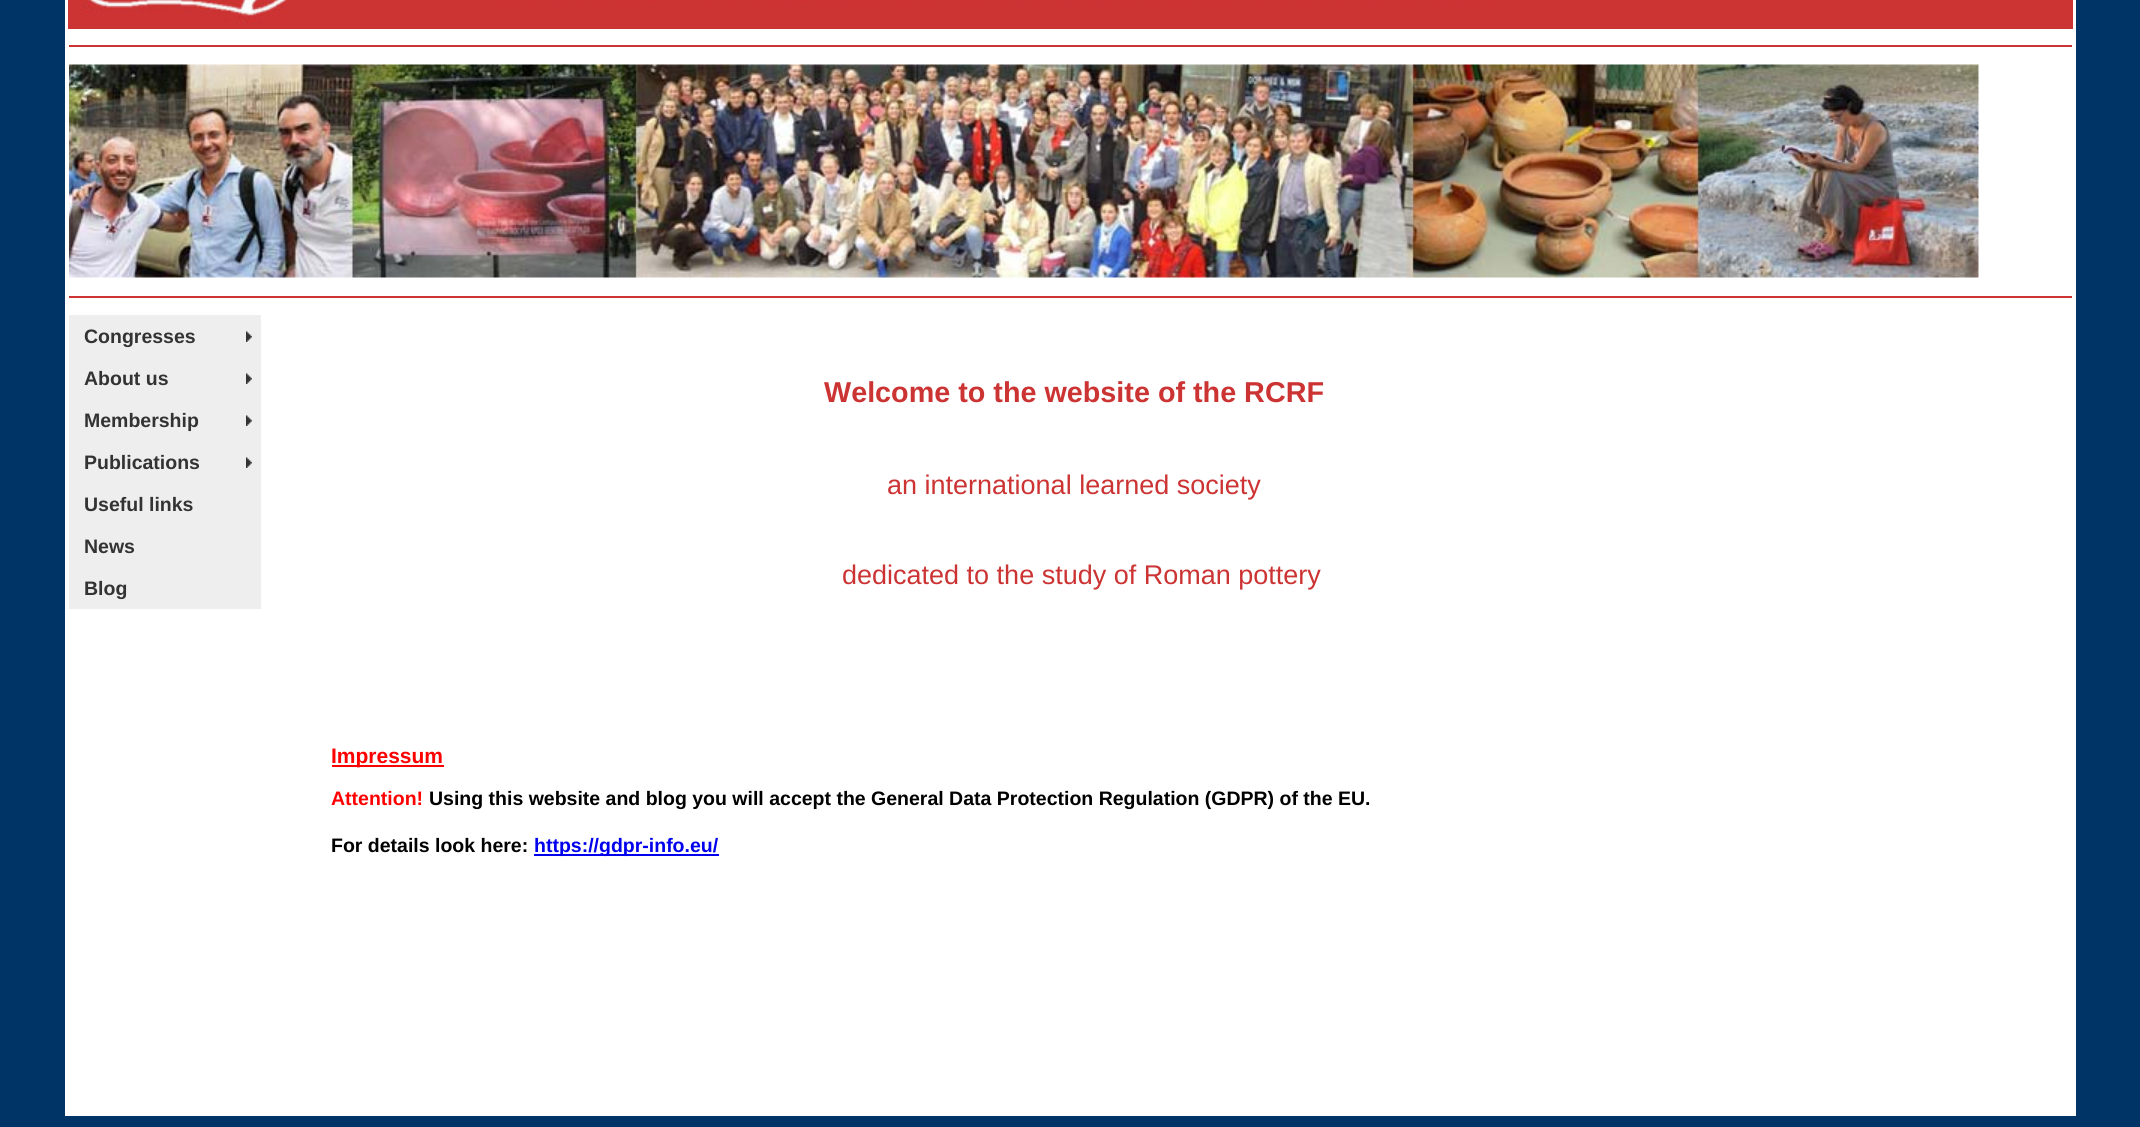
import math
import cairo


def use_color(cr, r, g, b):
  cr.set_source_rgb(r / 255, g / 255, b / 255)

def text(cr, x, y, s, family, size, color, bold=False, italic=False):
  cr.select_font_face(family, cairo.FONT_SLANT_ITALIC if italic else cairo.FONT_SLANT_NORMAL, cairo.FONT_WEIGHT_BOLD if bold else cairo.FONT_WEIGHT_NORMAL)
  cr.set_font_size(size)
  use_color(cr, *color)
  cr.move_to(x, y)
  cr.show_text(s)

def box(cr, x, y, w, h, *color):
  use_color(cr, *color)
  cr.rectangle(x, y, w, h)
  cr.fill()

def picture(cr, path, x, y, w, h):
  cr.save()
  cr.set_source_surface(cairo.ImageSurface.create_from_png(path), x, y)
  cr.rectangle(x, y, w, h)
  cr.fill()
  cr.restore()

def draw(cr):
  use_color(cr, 0, 51, 102)
  cr.paint()
  box(cr, 65, 0, 2011, 1116, 255, 255, 255)
  box(cr, 68, 0, 2005, 29, 204, 51, 51)
  picture(cr, "img_01.png", 81, 0, 207, 24)
  picture(cr, "img_02.png", 491, 0, 1006, 1)
  box(cr, 69, 45, 2003, 2, 204, 51, 51)
  picture(cr, "img_03.png", 69, 64, 1910, 214)
  box(cr, 69, 296, 2003, 2, 204, 51, 51)
  box(cr, 69, 315, 192, 294, 238, 238, 238)
  picture(cr, "img_04.png", 246, 331, 6, 11)
  picture(cr, "img_04.png", 246, 373, 6, 11)
  picture(cr, "img_04.png", 246, 415, 6, 11)
  picture(cr, "img_04.png", 246, 457, 6, 11)
  box(cr, 332, 765, 112, 2, 255, 0, 0)
  box(cr, 534, 854, 185, 2, 0, 0, 238)
  text(cr, 84, 343, "Congresses", "Liberation Sans", 19.5, (51, 51, 51), bold=True)
  text(cr, 84, 385, "About us", "Liberation Sans", 19.5, (51, 51, 51), bold=True)
  text(cr, 84, 427, "Membership", "Liberation Sans", 19.5, (51, 51, 51), bold=True)
  text(cr, 84, 469, "Publications", "Liberation Sans", 19.5, (51, 51, 51), bold=True)
  text(cr, 84, 511, "Useful links", "Liberation Sans", 19.5, (51, 51, 51), bold=True)
  text(cr, 84, 553, "News", "Liberation Sans", 19.5, (51, 51, 51), bold=True)
  text(cr, 84, 595, "Blog", "Liberation Sans", 19.5, (51, 51, 51), bold=True)
  text(cr, 824, 402, "Welcome to the website of the RCRF", "Liberation Sans", 28.75, (204, 51, 51), bold=True)
  text(cr, 887, 494, "an international learned society", "Liberation Sans", 27, (204, 51, 51))
  text(cr, 842, 584, "dedicated to the study of Roman pottery", "Liberation Sans", 27, (204, 51, 51))
  text(cr, 331, 763, "Impressum", "Liberation Sans", 21, (255, 0, 0), bold=True)
  text(cr, 331, 805, "Attention!", "Liberation Sans", 19.5, (255, 0, 0), bold=True)
  text(cr, 429, 805, "Using this website and blog you will accept the General Data Protection Regulation (GDPR) of the EU.", "Liberation Sans", 19.5, (0, 0, 0), bold=True)
  text(cr, 331, 852, "For details look here:", "Liberation Sans", 19.5, (0, 0, 0), bold=True)
  text(cr, 534, 852, "https://gdpr-info.eu/", "Liberation Sans", 19.5, (0, 0, 238), bold=True)


surface = cairo.ImageSurface(cairo.FORMAT_RGB24, 2140, 1127)
cr = cairo.Context(surface)
options = cairo.FontOptions()
options.set_hint_metrics(cairo.HINT_METRICS_OFF)
options.set_hint_style(cairo.HINT_STYLE_NONE)
cr.set_font_options(options)
cr.set_miter_limit(4)
draw(cr)
surface.write_to_png("out.png")
